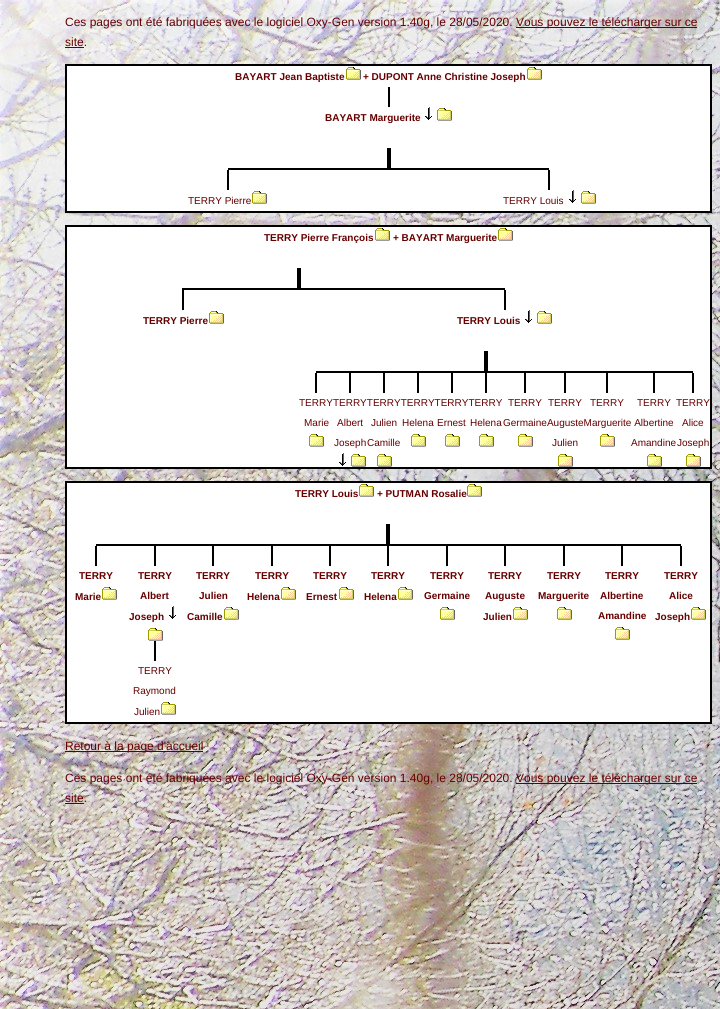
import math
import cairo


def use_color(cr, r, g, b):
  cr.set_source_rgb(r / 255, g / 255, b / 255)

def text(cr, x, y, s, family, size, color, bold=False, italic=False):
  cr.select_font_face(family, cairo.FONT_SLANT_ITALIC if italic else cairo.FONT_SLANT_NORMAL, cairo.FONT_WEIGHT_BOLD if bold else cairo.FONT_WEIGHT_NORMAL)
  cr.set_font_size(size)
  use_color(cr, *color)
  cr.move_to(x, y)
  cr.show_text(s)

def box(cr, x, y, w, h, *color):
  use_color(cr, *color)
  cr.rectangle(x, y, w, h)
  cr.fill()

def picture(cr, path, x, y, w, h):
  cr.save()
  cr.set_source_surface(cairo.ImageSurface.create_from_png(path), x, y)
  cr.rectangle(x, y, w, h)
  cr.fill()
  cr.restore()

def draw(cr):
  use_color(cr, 255, 255, 255)
  cr.paint()
  picture(cr, "img_01.png", 0, 0, 720, 1009)
  box(cr, 516, 27, 181, 1, 102, 0, 0)
  box(cr, 65, 47, 19, 1, 102, 0, 0)
  cr.rectangle(65.5, 64.5, 646, 148)
  use_color(cr, 0, 0, 0)
  cr.set_line_width(1)
  cr.stroke()
  cr.rectangle(66.5, 65.5, 644, 146)
  cr.stroke()
  box(cr, 67, 66, 643, 145, 255, 255, 255)
  picture(cr, "img_02.png", 346, 67, 15, 13)
  picture(cr, "img_02.png", 527, 67, 15, 13)
  box(cr, 388, 87, 2, 20, 0, 0, 0)
  picture(cr, "img_03.png", 425, 107, 7, 13)
  picture(cr, "img_02.png", 437, 108, 15, 13)
  box(cr, 228, 168, 102, 2, 0, 0, 0)
  box(cr, 387, 148, 2, 22, 0, 0, 0)
  box(cr, 330, 168, 219, 2, 0, 0, 0)
  box(cr, 389, 148, 2, 22, 0, 0, 0)
  box(cr, 227, 170, 2, 20, 0, 0, 0)
  box(cr, 548, 170, 2, 20, 0, 0, 0)
  picture(cr, "img_02.png", 252, 191, 15, 13)
  picture(cr, "img_03.png", 569, 190, 7, 13)
  picture(cr, "img_02.png", 581, 191, 15, 13)
  cr.rectangle(65.5, 225.5, 646, 243)
  cr.stroke()
  cr.rectangle(66.5, 226.5, 644, 241)
  cr.stroke()
  box(cr, 67, 227, 643, 240, 255, 255, 255)
  picture(cr, "img_02.png", 375, 228, 15, 13)
  picture(cr, "img_02.png", 498, 228, 15, 13)
  box(cr, 182, 288, 75, 2, 0, 0, 0)
  box(cr, 297, 268, 2, 22, 0, 0, 0)
  box(cr, 257, 288, 248, 2, 0, 0, 0)
  box(cr, 299, 268, 2, 22, 0, 0, 0)
  box(cr, 182, 290, 2, 20, 0, 0, 0)
  picture(cr, "img_02.png", 209, 311, 15, 13)
  box(cr, 504, 290, 2, 20, 0, 0, 0)
  picture(cr, "img_03.png", 525, 310, 7, 13)
  picture(cr, "img_02.png", 537, 311, 15, 13)
  box(cr, 316, 371, 108, 2, 0, 0, 0)
  box(cr, 484, 351, 2, 22, 0, 0, 0)
  box(cr, 424, 371, 269, 2, 0, 0, 0)
  box(cr, 486, 351, 2, 22, 0, 0, 0)
  box(cr, 315, 373, 2, 20, 0, 0, 0)
  box(cr, 349, 373, 2, 20, 0, 0, 0)
  box(cr, 383, 373, 2, 20, 0, 0, 0)
  box(cr, 417, 373, 2, 20, 0, 0, 0)
  box(cr, 451, 373, 2, 20, 0, 0, 0)
  box(cr, 485, 373, 2, 20, 0, 0, 0)
  box(cr, 524, 373, 2, 20, 0, 0, 0)
  box(cr, 564, 373, 2, 20, 0, 0, 0)
  box(cr, 606, 373, 2, 20, 0, 0, 0)
  box(cr, 653, 373, 2, 20, 0, 0, 0)
  box(cr, 692, 373, 2, 20, 0, 0, 0)
  picture(cr, "img_02.png", 309, 434, 15, 13)
  picture(cr, "img_02.png", 518, 434, 15, 13)
  picture(cr, "img_03.png", 339, 453, 7, 13)
  picture(cr, "img_02.png", 351, 454, 15, 13)
  picture(cr, "img_02.png", 377, 454, 15, 13)
  picture(cr, "img_02.png", 411, 434, 15, 13)
  picture(cr, "img_02.png", 445, 434, 15, 13)
  picture(cr, "img_02.png", 479, 434, 15, 13)
  picture(cr, "img_02.png", 558, 454, 15, 13)
  picture(cr, "img_02.png", 600, 434, 15, 13)
  picture(cr, "img_02.png", 647, 454, 15, 13)
  picture(cr, "img_02.png", 686, 454, 15, 13)
  cr.rectangle(65.5, 481.5, 646, 242)
  cr.stroke()
  cr.rectangle(66.5, 482.5, 644, 240)
  cr.stroke()
  box(cr, 67, 483, 643, 239, 255, 255, 255)
  picture(cr, "img_02.png", 359, 484, 15, 13)
  picture(cr, "img_02.png", 467, 484, 15, 13)
  box(cr, 96, 544, 186, 2, 0, 0, 0)
  box(cr, 386, 524, 2, 22, 0, 0, 0)
  box(cr, 282, 544, 399, 2, 0, 0, 0)
  box(cr, 388, 524, 2, 22, 0, 0, 0)
  box(cr, 95, 546, 2, 20, 0, 0, 0)
  picture(cr, "img_02.png", 102, 587, 15, 13)
  box(cr, 154, 546, 2, 20, 0, 0, 0)
  picture(cr, "img_03.png", 169, 606, 7, 13)
  picture(cr, "img_02.png", 148, 628, 15, 13)
  box(cr, 212, 546, 2, 20, 0, 0, 0)
  picture(cr, "img_02.png", 224, 607, 15, 13)
  box(cr, 271, 546, 2, 20, 0, 0, 0)
  picture(cr, "img_02.png", 281, 587, 15, 13)
  box(cr, 329, 546, 2, 20, 0, 0, 0)
  picture(cr, "img_02.png", 339, 587, 15, 13)
  box(cr, 387, 546, 2, 20, 0, 0, 0)
  picture(cr, "img_02.png", 398, 587, 15, 13)
  box(cr, 446, 546, 2, 20, 0, 0, 0)
  picture(cr, "img_02.png", 440, 607, 15, 13)
  box(cr, 504, 546, 2, 20, 0, 0, 0)
  picture(cr, "img_02.png", 513, 607, 15, 13)
  box(cr, 563, 546, 2, 20, 0, 0, 0)
  picture(cr, "img_02.png", 557, 607, 15, 13)
  box(cr, 621, 546, 2, 20, 0, 0, 0)
  picture(cr, "img_02.png", 615, 627, 15, 13)
  box(cr, 680, 546, 2, 20, 0, 0, 0)
  picture(cr, "img_02.png", 691, 607, 15, 13)
  box(cr, 154, 641, 2, 20, 0, 0, 0)
  picture(cr, "img_02.png", 161, 702, 15, 13)
  box(cr, 65, 751, 138, 1, 102, 0, 0)
  box(cr, 516, 783, 181, 1, 102, 0, 0)
  box(cr, 65, 803, 19, 1, 102, 0, 0)
  text(cr, 65, 26, "Ces pages ont été fabriquées avec le logiciel Oxy-Gen version 1.40g, le 28/05/2020.", "Liberation Sans", 12, (102, 0, 0))
  text(cr, 516, 26, "Vous pouvez le télécharger sur ce", "Liberation Sans", 12, (102, 0, 0))
  text(cr, 65, 46, "site.", "Liberation Sans", 12, (102, 0, 0))
  text(cr, 235, 80, "BAYART Jean Baptiste", "Liberation Sans", 10, (102, 0, 0), bold=True)
  text(cr, 363, 80, "+ DUPONT Anne Christine Joseph", "Liberation Sans", 10, (102, 0, 0), bold=True)
  text(cr, 325, 121, "BAYART Marguerite", "Liberation Sans", 10, (102, 0, 0), bold=True)
  text(cr, 188, 204, "TERRY Pierre", "Liberation Sans", 10, (102, 0, 0))
  text(cr, 503, 204, "TERRY Louis", "Liberation Sans", 10, (102, 0, 0))
  text(cr, 264, 241, "TERRY Pierre François", "Liberation Sans", 10, (102, 0, 0), bold=True)
  text(cr, 393, 241, "+ BAYART Marguerite", "Liberation Sans", 10, (102, 0, 0), bold=True)
  text(cr, 143, 324, "TERRY Pierre", "Liberation Sans", 10, (102, 0, 0), bold=True)
  text(cr, 457, 324, "TERRY Louis", "Liberation Sans", 10, (102, 0, 0), bold=True)
  text(cr, 299, 406, "TERRYTERRYTERRYTERRYTERRYTERRY", "Liberation Sans", 10, (102, 0, 0))
  text(cr, 304, 426, "Marie", "Liberation Sans", 10, (102, 0, 0))
  text(cr, 508, 406, "TERRY", "Liberation Sans", 10, (102, 0, 0))
  text(cr, 503, 426, "GermaineAugusteMarguerite Albertine", "Liberation Sans", 10, (102, 0, 0))
  text(cr, 337, 426, "Albert", "Liberation Sans", 10, (102, 0, 0))
  text(cr, 334, 446, "Joseph", "Liberation Sans", 10, (102, 0, 0))
  text(cr, 371, 426, "Julien", "Liberation Sans", 10, (102, 0, 0))
  text(cr, 367, 446, "Camille", "Liberation Sans", 10, (102, 0, 0))
  text(cr, 402, 426, "Helena", "Liberation Sans", 10, (102, 0, 0))
  text(cr, 437, 426, "Ernest", "Liberation Sans", 10, (102, 0, 0))
  text(cr, 470, 426, "Helena", "Liberation Sans", 10, (102, 0, 0))
  text(cr, 548, 406, "TERRY", "Liberation Sans", 10, (102, 0, 0))
  text(cr, 552, 446, "Julien", "Liberation Sans", 10, (102, 0, 0))
  text(cr, 590, 406, "TERRY", "Liberation Sans", 10, (102, 0, 0))
  text(cr, 637, 406, "TERRY", "Liberation Sans", 10, (102, 0, 0))
  text(cr, 631, 446, "Amandine", "Liberation Sans", 10, (102, 0, 0))
  text(cr, 676, 406, "TERRY", "Liberation Sans", 10, (102, 0, 0))
  text(cr, 682, 426, "Alice", "Liberation Sans", 10, (102, 0, 0))
  text(cr, 677, 446, "Joseph", "Liberation Sans", 10, (102, 0, 0))
  text(cr, 295, 497, "TERRY Louis", "Liberation Sans", 10, (102, 0, 0), bold=True)
  text(cr, 377, 497, "+ PUTMAN Rosalie", "Liberation Sans", 10, (102, 0, 0), bold=True)
  text(cr, 79, 579, "TERRY", "Liberation Sans", 10, (102, 0, 0), bold=True)
  text(cr, 75, 600, "Marie", "Liberation Sans", 10, (102, 0, 0), bold=True)
  text(cr, 138, 579, "TERRY", "Liberation Sans", 10, (102, 0, 0), bold=True)
  text(cr, 140, 599, "Albert", "Liberation Sans", 10, (102, 0, 0), bold=True)
  text(cr, 129, 620, "Joseph", "Liberation Sans", 10, (102, 0, 0), bold=True)
  text(cr, 196, 579, "TERRY", "Liberation Sans", 10, (102, 0, 0), bold=True)
  text(cr, 199, 599, "Julien", "Liberation Sans", 10, (102, 0, 0), bold=True)
  text(cr, 187, 620, "Camille", "Liberation Sans", 10, (102, 0, 0), bold=True)
  text(cr, 255, 579, "TERRY", "Liberation Sans", 10, (102, 0, 0), bold=True)
  text(cr, 247, 600, "Helena", "Liberation Sans", 10, (102, 0, 0), bold=True)
  text(cr, 313, 579, "TERRY", "Liberation Sans", 10, (102, 0, 0), bold=True)
  text(cr, 306, 600, "Ernest", "Liberation Sans", 10, (102, 0, 0), bold=True)
  text(cr, 371, 579, "TERRY", "Liberation Sans", 10, (102, 0, 0), bold=True)
  text(cr, 364, 600, "Helena", "Liberation Sans", 10, (102, 0, 0), bold=True)
  text(cr, 430, 579, "TERRY", "Liberation Sans", 10, (102, 0, 0), bold=True)
  text(cr, 424, 599, "Germaine", "Liberation Sans", 10, (102, 0, 0), bold=True)
  text(cr, 488, 579, "TERRY", "Liberation Sans", 10, (102, 0, 0), bold=True)
  text(cr, 485, 599, "Auguste", "Liberation Sans", 10, (102, 0, 0), bold=True)
  text(cr, 483, 620, "Julien", "Liberation Sans", 10, (102, 0, 0), bold=True)
  text(cr, 547, 579, "TERRY", "Liberation Sans", 10, (102, 0, 0), bold=True)
  text(cr, 538, 599, "Marguerite", "Liberation Sans", 10, (102, 0, 0), bold=True)
  text(cr, 605, 579, "TERRY", "Liberation Sans", 10, (102, 0, 0), bold=True)
  text(cr, 600, 599, "Albertine", "Liberation Sans", 10, (102, 0, 0), bold=True)
  text(cr, 598, 619, "Amandine", "Liberation Sans", 10, (102, 0, 0), bold=True)
  text(cr, 664, 579, "TERRY", "Liberation Sans", 10, (102, 0, 0), bold=True)
  text(cr, 669, 599, "Alice", "Liberation Sans", 10, (102, 0, 0), bold=True)
  text(cr, 655, 620, "Joseph", "Liberation Sans", 10, (102, 0, 0), bold=True)
  text(cr, 138, 674, "TERRY", "Liberation Sans", 10, (102, 0, 0))
  text(cr, 133, 694, "Raymond", "Liberation Sans", 10, (102, 0, 0))
  text(cr, 134, 715, "Julien", "Liberation Sans", 10, (102, 0, 0))
  text(cr, 65, 750, "Retour à la page d'accueil", "Liberation Sans", 12, (102, 0, 0))
  text(cr, 65, 782, "Ces pages ont été fabriquées avec le logiciel Oxy-Gen version 1.40g, le 28/05/2020.", "Liberation Sans", 12, (102, 0, 0))
  text(cr, 516, 782, "Vous pouvez le télécharger sur ce", "Liberation Sans", 12, (102, 0, 0))
  text(cr, 65, 802, "site.", "Liberation Sans", 12, (102, 0, 0))


surface = cairo.ImageSurface(cairo.FORMAT_RGB24, 720, 1009)
cr = cairo.Context(surface)
options = cairo.FontOptions()
options.set_hint_metrics(cairo.HINT_METRICS_OFF)
options.set_hint_style(cairo.HINT_STYLE_NONE)
cr.set_font_options(options)
cr.set_miter_limit(4)
draw(cr)
surface.write_to_png("out.png")
